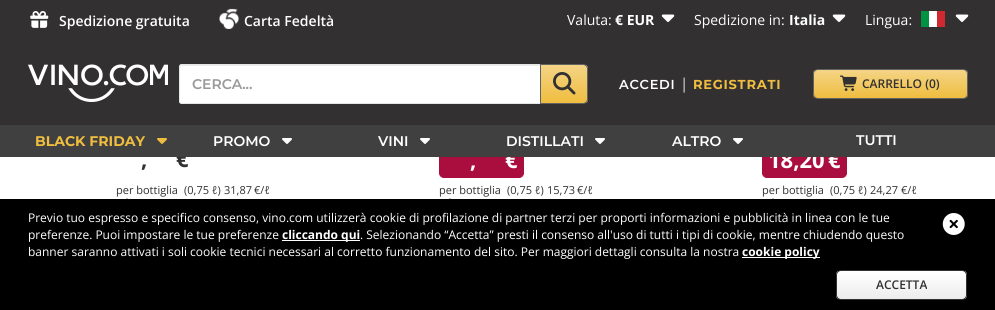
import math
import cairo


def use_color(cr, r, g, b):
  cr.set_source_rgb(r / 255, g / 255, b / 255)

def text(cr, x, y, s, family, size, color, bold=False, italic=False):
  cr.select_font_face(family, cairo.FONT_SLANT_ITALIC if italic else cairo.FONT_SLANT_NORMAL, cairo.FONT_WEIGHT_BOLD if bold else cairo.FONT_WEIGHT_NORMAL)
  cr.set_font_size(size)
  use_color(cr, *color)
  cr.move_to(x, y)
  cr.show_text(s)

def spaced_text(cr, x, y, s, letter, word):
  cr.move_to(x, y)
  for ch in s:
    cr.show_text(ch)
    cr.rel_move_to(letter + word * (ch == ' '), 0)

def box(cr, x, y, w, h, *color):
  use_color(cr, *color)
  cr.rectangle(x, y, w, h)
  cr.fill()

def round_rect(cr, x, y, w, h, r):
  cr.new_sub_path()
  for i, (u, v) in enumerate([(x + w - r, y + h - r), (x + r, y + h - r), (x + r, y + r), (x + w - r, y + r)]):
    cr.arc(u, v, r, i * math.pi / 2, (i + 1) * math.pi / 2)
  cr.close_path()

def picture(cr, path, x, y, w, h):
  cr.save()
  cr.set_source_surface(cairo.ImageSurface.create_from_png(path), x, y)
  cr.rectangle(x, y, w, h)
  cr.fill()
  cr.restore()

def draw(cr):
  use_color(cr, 255, 255, 255)
  cr.paint()
  box(cr, 0, 0, 995, 125, 50, 48, 49)
  picture(cr, "img_01.png", 30, 11, 19, 17)
  picture(cr, "img_02.png", 219, 8, 20, 21)
  picture(cr, "img_03.png", 661, 14, 14, 8)
  picture(cr, "img_03.png", 832, 14, 14, 8)
  picture(cr, "img_04.png", 921, 11, 24, 16)
  picture(cr, "img_03.png", 955, 14, 14, 8)
  picture(cr, "img_05.png", 28, 64, 140, 38)
  use_color(cr, 255, 255, 255)
  cr.new_path()
  cr.move_to(182, 64)
  cr.line_to(541, 64)
  cr.line_to(541, 104)
  cr.line_to(182, 104)
  cr.curve_to(180.5, 104, 179, 102.5, 179, 101)
  cr.line_to(179, 67)
  cr.curve_to(179, 65.5, 180.5, 64, 182, 64)
  cr.close_path()
  cr.fill()
  use_color(cr, 236, 236, 236)
  cr.new_path()
  cr.move_to(182, 65)
  cr.curve_to(180, 65, 180, 67, 180, 68)
  cr.line_to(181, 66)
  cr.line_to(540, 66)
  cr.line_to(540, 65)
  cr.close_path()
  cr.fill()
  cr.new_path()
  cr.move_to(182, 64.5)
  cr.line_to(540.5, 64.5)
  cr.line_to(540.5, 103.5)
  cr.line_to(182, 103.5)
  cr.curve_to(180.5, 103.5, 179.5, 102.5, 179.5, 101)
  cr.line_to(179.5, 67)
  cr.curve_to(179.5, 65.5, 180.5, 64.5, 182, 64.5)
  cr.close_path()
  use_color(cr, 230, 230, 230)
  cr.set_line_width(1)
  cr.stroke()
  cr.save()
  cr.new_path()
  cr.move_to(540, 64)
  cr.line_to(583, 64)
  cr.curve_to(586, 64, 588, 66, 588, 69)
  cr.line_to(588, 99)
  cr.curve_to(588, 102, 586, 104, 583, 104)
  cr.line_to(540, 104)
  cr.close_path()
  cr.clip()
  gradient = cairo.LinearGradient(564, 65, 564, 103)
  gradient.add_color_stop_rgba(0, 0.957, 0.831, 0.525, 1)
  gradient.add_color_stop_rgba(1, 0.937, 0.741, 0.247, 1)
  cr.set_source(gradient)
  cr.rectangle(541, 65, 47, 38)
  cr.fill()
  cr.restore()
  cr.new_path()
  cr.move_to(540.5, 64.5)
  cr.line_to(583, 64.5)
  cr.curve_to(585.5, 64.5, 587.5, 66.5, 587.5, 69)
  cr.line_to(587.5, 99)
  cr.curve_to(587.5, 101.5, 585.5, 103.5, 583, 103.5)
  cr.line_to(540.5, 103.5)
  cr.close_path()
  use_color(cr, 98, 98, 98)
  cr.stroke()
  picture(cr, "img_06.png", 553, 72, 23, 23)
  cr.save()
  round_rect(cr, 813, 69, 155, 30, 5)
  cr.clip()
  gradient = cairo.LinearGradient(891, 70, 891, 98)
  gradient.add_color_stop_rgba(0, 0.957, 0.831, 0.525, 1)
  gradient.add_color_stop_rgba(1, 0.937, 0.741, 0.247, 1)
  cr.set_source(gradient)
  cr.rectangle(813, 70, 155, 28)
  cr.fill()
  cr.restore()
  round_rect(cr, 813.5, 69.5, 154, 29, 4.5)
  cr.stroke()
  picture(cr, "img_07.png", 840, 75, 17, 16)
  picture(cr, "img_10.png", 126, 198, 2, 1)
  use_color(cr, 170, 14, 62)
  round_rect(cr, 439.5, 142.5, 84, 35, 4.5)
  cr.fill_preserve()
  cr.stroke()
  picture(cr, "img_10.png", 449, 198, 2, 1)
  round_rect(cr, 762.5, 142.5, 84, 35, 4.5)
  cr.fill_preserve()
  cr.stroke()
  picture(cr, "img_10.png", 772, 198, 2, 1)
  box(cr, 0, 199, 995, 111, 0, 0, 0)
  picture(cr, "img_11.png", 942, 213, 23, 22)
  box(cr, 282, 240, 78, 1, 255, 255, 255)
  box(cr, 742, 257, 78, 1, 255, 255, 255)
  cr.save()
  round_rect(cr, 836, 270, 131, 30, 5)
  cr.clip()
  gradient = cairo.LinearGradient(902, 271, 902, 299)
  gradient.add_color_stop_rgba(0, 1, 1, 1, 1)
  gradient.add_color_stop_rgba(1, 0.925, 0.925, 0.925, 1)
  cr.set_source(gradient)
  cr.rectangle(836, 271, 131, 28)
  cr.fill()
  cr.restore()
  round_rect(cr, 836.5, 270.5, 130, 29, 4.5)
  use_color(cr, 50, 48, 49)
  cr.stroke()
  text(cr, 59, 26, "Spedizione gratuita", "Open Sans SemiBold", 14, (255, 255, 255))
  text(cr, 244, 26, "Carta Fedeltà", "Open Sans SemiBold", 14, (255, 255, 255))
  text(cr, 567, 25, "Valuta:", "Open Sans", 14, (255, 255, 255))
  text(cr, 615, 25, "€ EUR", "Open Sans", 14, (255, 255, 255), bold=True)
  text(cr, 694, 25, "Spedizione in:", "Open Sans", 14, (255, 255, 255))
  text(cr, 789, 25, "Italia", "Open Sans", 14, (255, 255, 255), bold=True)
  text(cr, 865, 25, "Lingua:", "Open Sans", 14, (255, 255, 255))
  text(cr, 192, 89, "CERCA...", "Montserrat SemiBold", 14, (153, 153, 153))
  cr.set_font_size(13)
  use_color(cr, 255, 255, 255)
  spaced_text(cr, 619, 89, "ACCEDI", 0.75, 0)
  text(cr, 680, 89, "|", "Open Sans", 15, (230, 230, 230))
  cr.select_font_face("Montserrat", cairo.FONT_SLANT_NORMAL, cairo.FONT_WEIGHT_BOLD)
  cr.set_font_size(13)
  use_color(cr, 239, 189, 63)
  spaced_text(cr, 693, 89, "REGISTRATI", 0.75, 0)
  text(cr, 862, 88, "CARRELLO (0)", "Open Sans SemiBold", 12, (50, 48, 49))
  text(cr, 141, 167, ",", "Open Sans", 22, (50, 48, 49), bold=True)
  text(cr, 176, 167, "€", "Open Sans", 22, (50, 48, 49), bold=True)
  text(cr, 116, 194, "per bottiglia", "Open Sans", 11, (50, 48, 49))
  text(cr, 184, 194, "(0,75 ℓ)", "Open Sans", 11, (50, 48, 49))
  text(cr, 224, 194, "31,87", "Open Sans", 11, (50, 48, 49))
  text(cr, 254, 194, "€/ℓ", "Open Sans", 11, (50, 48, 49))
  text(cr, 470, 168, ",", "Open Sans", 22, (255, 255, 255), bold=True)
  text(cr, 505, 168, "€", "Open Sans", 22, (255, 255, 255), bold=True)
  text(cr, 439, 194, "per bottiglia", "Open Sans", 11, (50, 48, 49))
  text(cr, 507, 194, "(0,75 ℓ)", "Open Sans", 11, (50, 48, 49))
  text(cr, 547, 194, "15,73", "Open Sans", 11, (50, 48, 49))
  text(cr, 577, 194, "€/ℓ", "Open Sans", 11, (50, 48, 49))
  text(cr, 768, 168, "18,20", "Open Sans", 22, (255, 255, 255), bold=True)
  text(cr, 828, 168, "€", "Open Sans", 22, (255, 255, 255), bold=True)
  box(cr, 0, 125, 995, 32, 64, 64, 64)
  picture(cr, "img_09.png", 733, 138, 10, 6)
  picture(cr, "img_09.png", 595, 138, 10, 6)
  picture(cr, "img_09.png", 420, 138, 10, 6)
  picture(cr, "img_09.png", 282, 138, 10, 6)
  picture(cr, "img_08.png", 157, 138, 10, 6)
  text(cr, 856, 145, "TUTTI", "Montserrat SemiBold", 14, (255, 255, 255))
  text(cr, 672, 146, "ALTRO", "Montserrat SemiBold", 14, (255, 255, 255))
  text(cr, 506, 146, "DISTILLATI", "Montserrat SemiBold", 14, (255, 255, 255))
  text(cr, 378, 146, "VINI", "Montserrat SemiBold", 14, (255, 255, 255))
  text(cr, 213, 146, "PROMO", "Montserrat SemiBold", 14, (255, 255, 255))
  text(cr, 35, 146, "BLACK FRIDAY", "Montserrat", 14, (239, 189, 63), bold=True)
  text(cr, 762, 194, "per bottiglia", "Open Sans", 11, (50, 48, 49))
  text(cr, 830, 194, "(0,75 ℓ)", "Open Sans", 11, (50, 48, 49))
  text(cr, 870, 194, "24,27", "Open Sans", 11, (50, 48, 49))
  text(cr, 901, 194, "€/ℓ", "Open Sans", 11, (50, 48, 49))
  text(cr, 28, 222, "Previo tuo espresso e specifico consenso, vino.com utilizzerà cookie di profilazione di partner terzi per proporti informazioni e pubblicità in linea con le tue", "Open Sans", 12, (255, 255, 255))
  text(cr, 28, 239, "preferenze. Puoi impostare le tue preferenze", "Open Sans", 12, (255, 255, 255))
  text(cr, 282, 239, "cliccando qui", "Open Sans", 12, (255, 255, 255), bold=True)
  text(cr, 360, 239, ". Selezionando “Accetta” presti il consenso all'uso di tutti i tipi di cookie, mentre chiudendo questo", "Open Sans", 12, (255, 255, 255))
  text(cr, 28, 256, "banner saranno attivati i soli cookie tecnici necessari al corretto funzionamento del sito. Per maggiori dettagli consulta la nostra", "Open Sans", 12, (255, 255, 255))
  text(cr, 742, 256, "cookie policy", "Open Sans", 12, (255, 255, 255), bold=True)
  text(cr, 876, 289, "ACCETTA", "Open Sans SemiBold", 12, (50, 48, 49))


surface = cairo.ImageSurface(cairo.FORMAT_RGB24, 995, 310)
cr = cairo.Context(surface)
options = cairo.FontOptions()
options.set_hint_metrics(cairo.HINT_METRICS_OFF)
options.set_hint_style(cairo.HINT_STYLE_NONE)
cr.set_font_options(options)
cr.set_miter_limit(4)
draw(cr)
surface.write_to_png("out.png")
